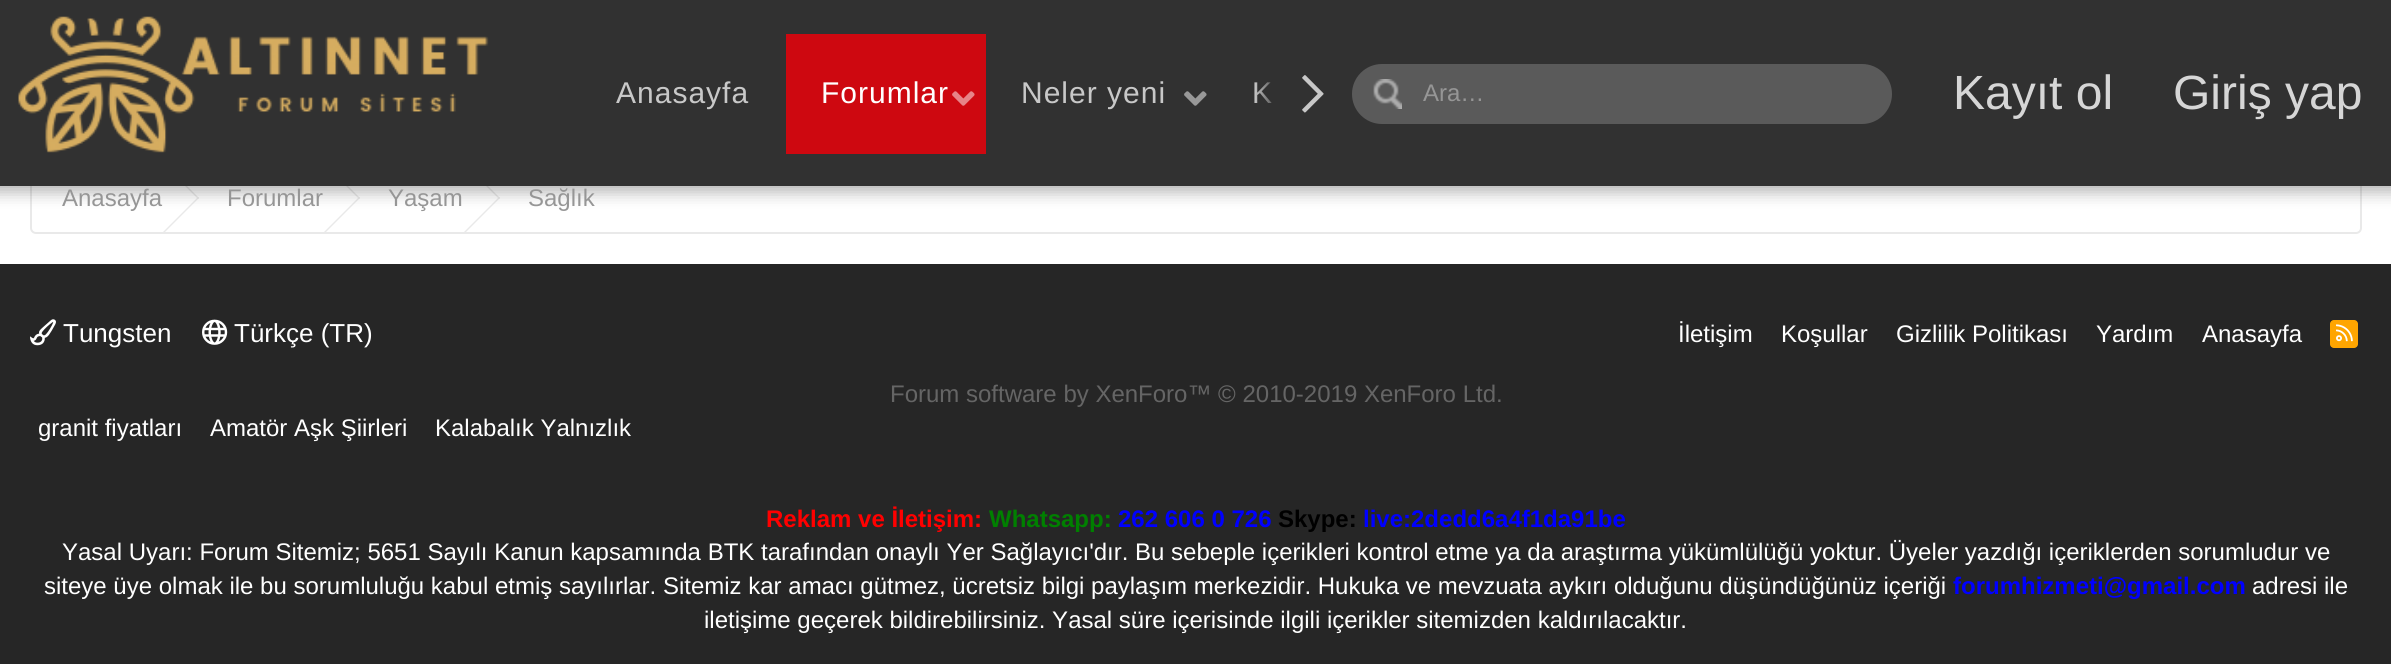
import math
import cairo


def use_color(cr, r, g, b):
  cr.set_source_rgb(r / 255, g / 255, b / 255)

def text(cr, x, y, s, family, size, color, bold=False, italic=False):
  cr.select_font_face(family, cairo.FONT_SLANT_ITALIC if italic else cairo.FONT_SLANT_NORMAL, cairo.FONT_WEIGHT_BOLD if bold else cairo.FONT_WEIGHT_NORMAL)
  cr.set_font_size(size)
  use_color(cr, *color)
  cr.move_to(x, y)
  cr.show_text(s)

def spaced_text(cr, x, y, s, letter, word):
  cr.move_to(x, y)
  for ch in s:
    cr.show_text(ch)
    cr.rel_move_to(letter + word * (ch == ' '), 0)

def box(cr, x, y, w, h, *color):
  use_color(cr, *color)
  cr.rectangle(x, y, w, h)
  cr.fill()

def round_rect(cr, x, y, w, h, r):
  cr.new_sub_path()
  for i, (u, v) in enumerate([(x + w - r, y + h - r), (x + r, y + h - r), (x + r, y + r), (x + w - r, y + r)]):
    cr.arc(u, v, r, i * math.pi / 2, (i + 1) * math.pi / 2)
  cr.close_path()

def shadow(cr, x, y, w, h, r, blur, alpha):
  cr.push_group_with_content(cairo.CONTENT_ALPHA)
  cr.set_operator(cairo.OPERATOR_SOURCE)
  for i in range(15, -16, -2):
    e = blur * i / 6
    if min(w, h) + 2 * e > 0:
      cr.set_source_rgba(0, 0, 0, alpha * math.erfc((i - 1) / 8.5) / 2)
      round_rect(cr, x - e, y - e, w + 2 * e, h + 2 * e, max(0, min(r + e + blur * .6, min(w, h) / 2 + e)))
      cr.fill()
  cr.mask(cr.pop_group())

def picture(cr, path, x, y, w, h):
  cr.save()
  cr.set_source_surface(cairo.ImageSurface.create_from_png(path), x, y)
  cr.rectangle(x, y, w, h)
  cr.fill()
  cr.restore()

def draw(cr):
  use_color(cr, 255, 255, 255)
  cr.paint()
  round_rect(cr, 31, 163, 2330, 70, 5)
  use_color(cr, 233, 233, 233)
  cr.stroke()
  cr.new_path()
  cr.move_to(165, 164)
  cr.line_to(199, 198)
  cr.line_to(198, 199)
  cr.line_to(163, 164)
  cr.close_path()
  cr.fill()
  cr.new_path()
  cr.move_to(165, 232)
  cr.line_to(163, 232)
  cr.line_to(198, 197)
  cr.line_to(199, 198)
  cr.close_path()
  cr.fill()
  cr.new_path()
  cr.move_to(326, 164)
  cr.line_to(360, 198)
  cr.line_to(359, 199)
  cr.line_to(324, 164)
  cr.close_path()
  cr.fill()
  cr.new_path()
  cr.move_to(326, 232)
  cr.line_to(324, 232)
  cr.line_to(359, 197)
  cr.line_to(360, 198)
  cr.close_path()
  cr.fill()
  cr.new_path()
  cr.move_to(466, 164)
  cr.line_to(500, 198)
  cr.line_to(499, 199)
  cr.line_to(464, 164)
  cr.close_path()
  cr.fill()
  cr.new_path()
  cr.move_to(466, 232)
  cr.line_to(464, 232)
  cr.line_to(499, 197)
  cr.line_to(500, 198)
  cr.close_path()
  cr.fill()
  use_color(cr, 0, 0, 0)
  shadow(cr, -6, -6, 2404, 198, 0, 8, 0.3)
  box(cr, 0, 0, 2391, 186, 49, 49, 49)
  picture(cr, "img_01.png", 18, 16, 471, 137)
  box(cr, 786, 34, 200, 120, 206, 8, 16)
  picture(cr, "img_02.png", 952, 91, 23, 15)
  picture(cr, "img_03.png", 1184, 91, 23, 15)
  picture(cr, "img_04.png", 1302, 75, 22, 38)
  use_color(cr, 90, 90, 90)
  round_rect(cr, 1352, 64, 540, 60, 30)
  cr.fill()
  picture(cr, "img_05.png", 1373, 79, 29, 30)
  box(cr, 0, 264, 2391, 400, 38, 38, 38)
  picture(cr, "img_06.png", 30, 319, 26, 27)
  picture(cr, "img_07.png", 202, 319, 26, 26)
  use_color(cr, 255, 165, 0)
  round_rect(cr, 2330, 320, 28, 28, 4)
  cr.fill()
  picture(cr, "img_08.png", 2336, 324, 17, 18)
  cr.select_font_face("Liberation Sans")
  cr.set_font_size(30)
  use_color(cr, 200, 200, 200)
  spaced_text(cr, 616, 103, "Anasayfa", 1, 0)
  use_color(cr, 255, 255, 255)
  spaced_text(cr, 821, 103, "Forumlar", 1, 0)
  use_color(cr, 200, 200, 200)
  spaced_text(cr, 1021, 103, "Neler yeni", 1, 0)
  spaced_text(cr, 1252, 103, "K", 1, 0)
  gradient = cairo.LinearGradient(1254, 94, 1334, 94)
  gradient.add_color_stop_rgba(0, 0.192, 0.192, 0.192, 0)
  gradient.add_color_stop_rgba(0.33, 0.192, 0.192, 0.192, 1)
  cr.set_source(gradient)
  cr.rectangle(1255, 82, 17, 21)
  cr.fill()
  text(cr, 1423, 101, "Ara…", "Liberation Sans", 24, (150, 150, 150))
  text(cr, 1953, 109, "Kayıt ol", "Liberation Sans", 48, (214, 214, 214))
  text(cr, 2173, 109, "Giriş yap", "Liberation Sans", 48, (214, 214, 214))
  text(cr, 62, 206, "Anasayfa", "Liberation Sans", 24, (150, 150, 150))
  text(cr, 227, 206, "Forumlar", "Liberation Sans", 24, (150, 150, 150))
  text(cr, 388, 206, "Yaşam", "Liberation Sans", 24, (150, 150, 150))
  text(cr, 528, 206, "Sağlık", "Liberation Sans", 24, (150, 150, 150))
  text(cr, 63, 342, "Tungsten", "Liberation Sans", 26, (255, 255, 255))
  text(cr, 234, 342, "Türkçe (TR)", "Liberation Sans", 26, (255, 255, 255))
  text(cr, 1678, 342, "İletişim", "Liberation Sans", 24, (255, 255, 255))
  text(cr, 1781, 342, "Koşullar", "Liberation Sans", 24, (255, 255, 255))
  text(cr, 1896, 342, "Gizlilik Politikası", "Liberation Sans", 24, (255, 255, 255))
  text(cr, 2096, 342, "Yardım", "Liberation Sans", 24, (255, 255, 255))
  text(cr, 2202, 342, "Anasayfa", "Liberation Sans", 24, (255, 255, 255))
  text(cr, 890, 402, "Forum software by XenForo™ © 2010-2019 XenForo Ltd.", "Liberation Sans", 24, (101, 101, 101))
  text(cr, 38, 436, "granit fiyatları", "Liberation Sans", 24, (255, 255, 255))
  text(cr, 210, 436, "Amatör Aşk Şiirleri", "Liberation Sans", 24, (255, 255, 255))
  text(cr, 435, 436, "Kalabalık Yalnızlık", "Liberation Sans", 24, (255, 255, 255))
  text(cr, 766, 527, "Reklam ve İletişim:", "Liberation Sans", 24, (255, 0, 0), bold=True)
  text(cr, 989, 527, "Whatsapp:", "Liberation Sans", 24, (0, 128, 0), bold=True)
  text(cr, 1118, 527, "262 606 0 726", "Liberation Sans", 24, (0, 0, 255), bold=True)
  text(cr, 1278, 527, "Skype:", "Liberation Sans", 24, (0, 0, 0), bold=True)
  text(cr, 1363, 527, "live:2dedd6a4f1da91be", "Liberation Sans", 24, (0, 0, 255), bold=True)
  text(cr, 62, 560, "Yasal Uyarı: Forum Sitemiz; 5651 Sayılı Kanun kapsamında BTK tarafından onaylı Yer Sağlayıcı'dır. Bu sebeple içerikleri kontrol etme ya da araştırma yükümlülüğü yoktur. Üyeler yazdığı içeriklerden sorumludur ve", "Liberation Sans", 24, (255, 255, 255))
  text(cr, 44, 594, "siteye üye olmak ile bu sorumluluğu kabul etmiş sayılırlar. Sitemiz kar amacı gütmez, ücretsiz bilgi paylaşım merkezidir. Hukuka ve mevzuata aykırı olduğunu düşündüğünüz içeriği", "Liberation Sans", 24, (255, 255, 255))
  text(cr, 1953, 594, "forumhizmeti@gmail.com", "Liberation Sans", 24, (0, 0, 255), bold=True)
  text(cr, 2252, 594, "adresi ile", "Liberation Sans", 24, (255, 255, 255))
  text(cr, 704, 628, "iletişime geçerek bildirebilirsiniz. Yasal süre içerisinde ilgili içerikler sitemizden kaldırılacaktır.", "Liberation Sans", 24, (255, 255, 255))


surface = cairo.ImageSurface(cairo.FORMAT_RGB24, 2391, 664)
cr = cairo.Context(surface)
options = cairo.FontOptions()
options.set_hint_metrics(cairo.HINT_METRICS_OFF)
options.set_hint_style(cairo.HINT_STYLE_NONE)
cr.set_font_options(options)
cr.set_miter_limit(4)
draw(cr)
surface.write_to_png("out.png")
